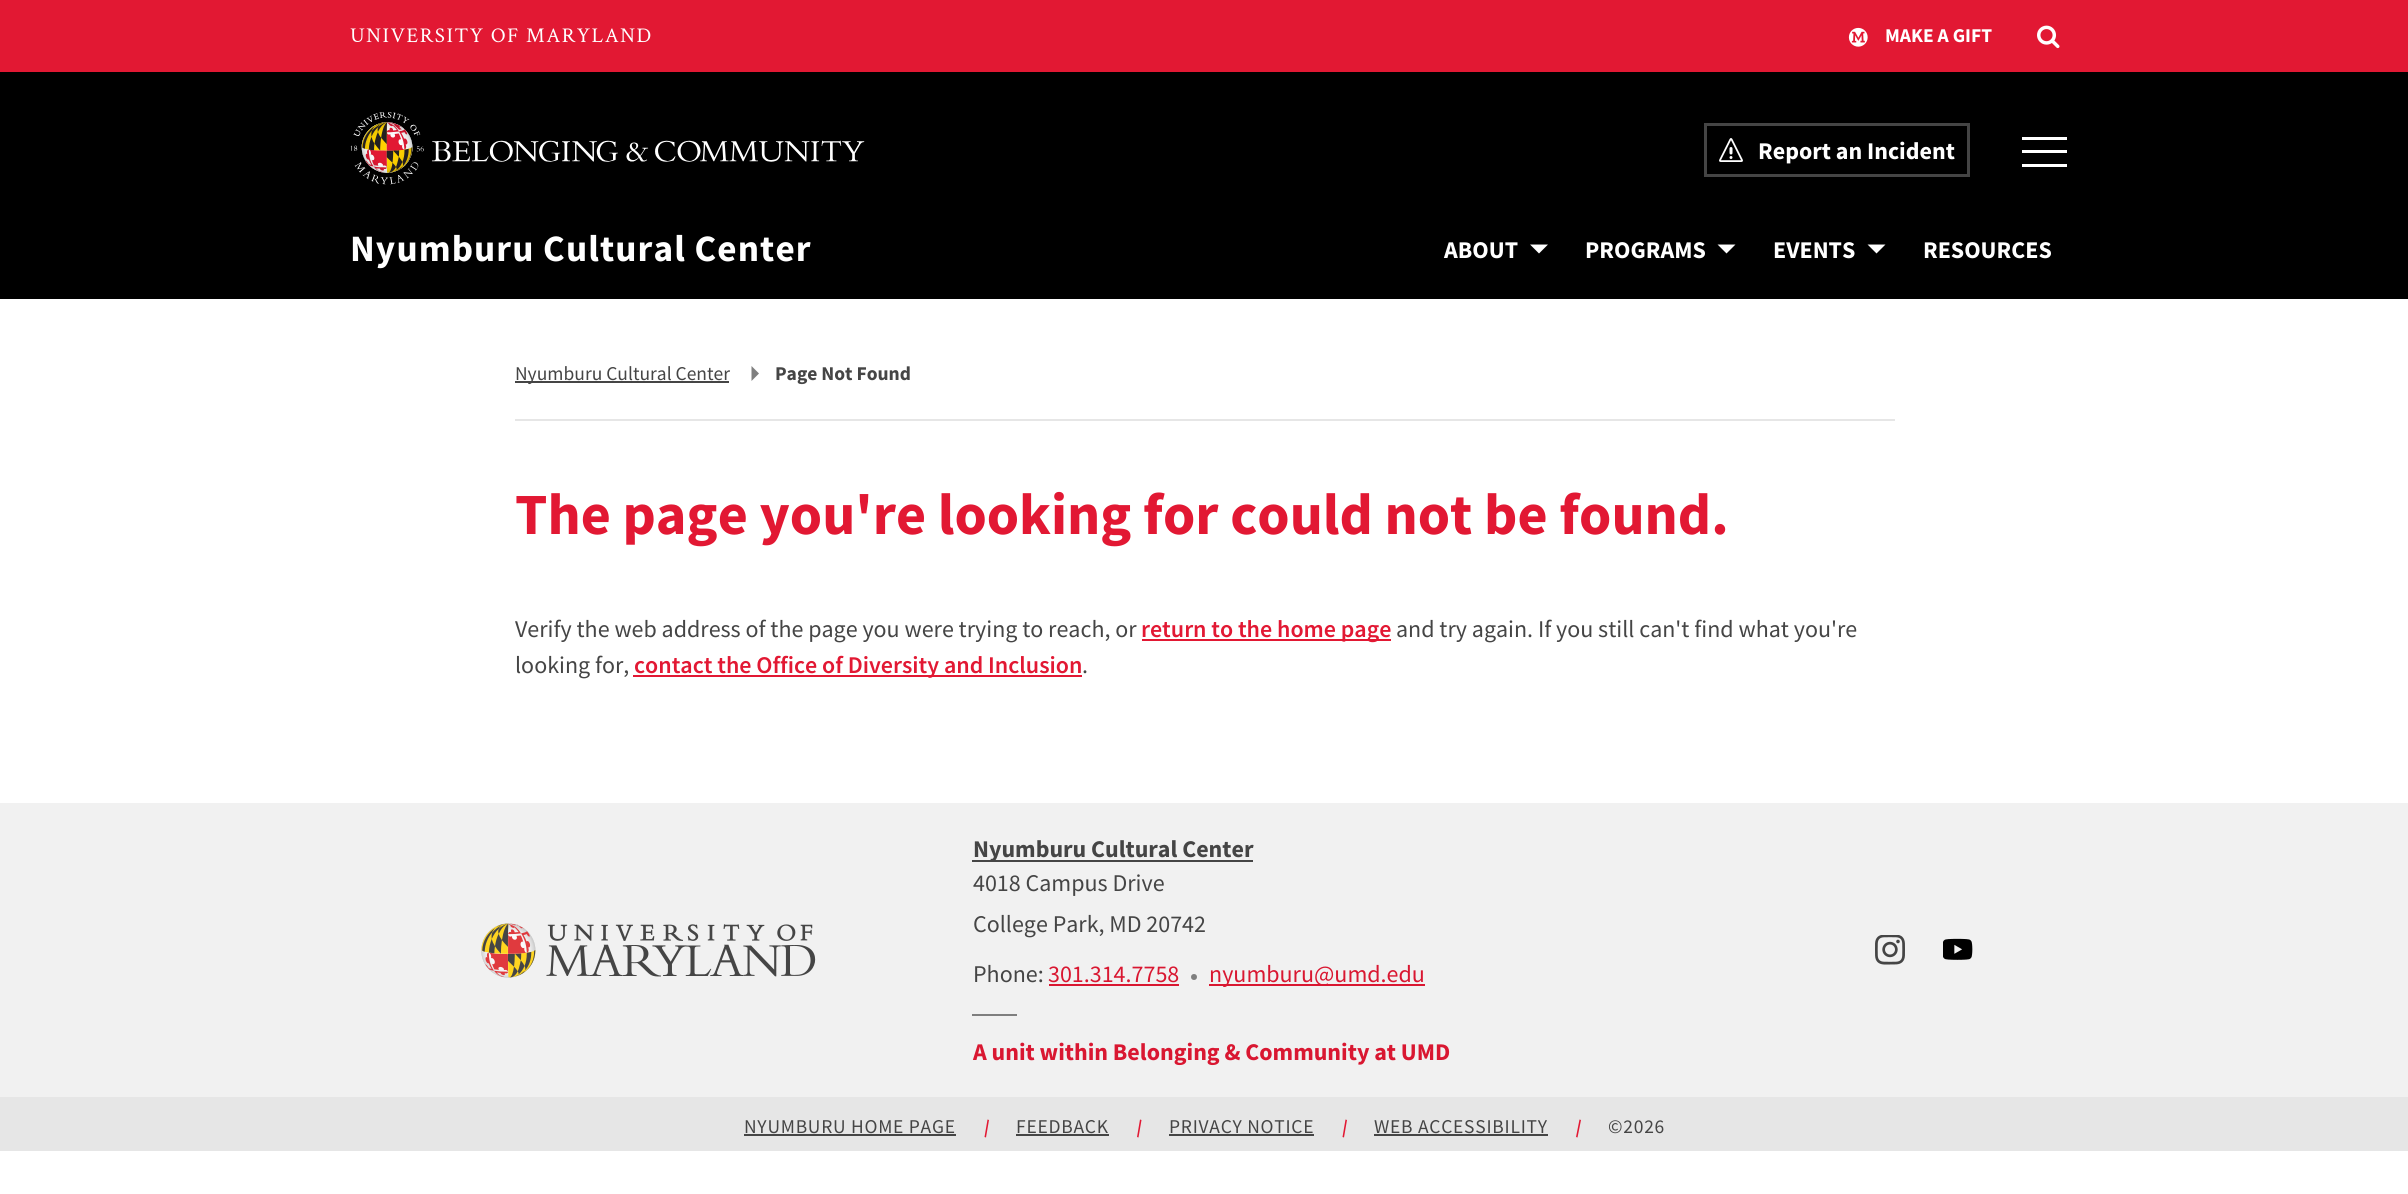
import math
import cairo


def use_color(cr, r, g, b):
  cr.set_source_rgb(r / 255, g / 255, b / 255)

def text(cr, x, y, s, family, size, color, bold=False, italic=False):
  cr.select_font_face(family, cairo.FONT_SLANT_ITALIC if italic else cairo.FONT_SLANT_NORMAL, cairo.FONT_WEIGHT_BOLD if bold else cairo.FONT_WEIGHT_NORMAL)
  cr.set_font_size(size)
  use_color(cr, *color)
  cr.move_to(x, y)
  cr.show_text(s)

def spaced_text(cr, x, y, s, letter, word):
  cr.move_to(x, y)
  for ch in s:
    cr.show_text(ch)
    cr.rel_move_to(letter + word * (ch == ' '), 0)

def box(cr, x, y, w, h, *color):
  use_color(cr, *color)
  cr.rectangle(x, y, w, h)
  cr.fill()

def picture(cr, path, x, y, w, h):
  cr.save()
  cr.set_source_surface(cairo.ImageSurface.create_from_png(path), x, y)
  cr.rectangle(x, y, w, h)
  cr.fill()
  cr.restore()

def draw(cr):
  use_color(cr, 255, 255, 255)
  cr.paint()
  box(cr, 0, 0, 2408, 72, 226, 24, 51)
  picture(cr, "img_01.png", 1848, 27, 20, 20)
  picture(cr, "img_02.png", 2037, 25, 23, 24)
  box(cr, 0, 72, 2408, 227, 0, 0, 0)
  picture(cr, "img_03.png", 350, 112, 515, 73)
  cr.rectangle(1705.5, 124.5, 263, 51)
  use_color(cr, 69, 69, 69)
  cr.set_line_width(3)
  cr.stroke()
  picture(cr, "img_04.png", 1719, 138, 24, 24)
  box(cr, 2022, 137, 45, 3, 255, 255, 255)
  box(cr, 2022, 150, 45, 3, 255, 255, 255)
  box(cr, 2022, 164, 45, 3, 255, 255, 255)
  cr.new_path()
  cr.move_to(1530, 244.5)
  cr.line_to(1548, 244.5)
  cr.line_to(1539, 253.5)
  cr.close_path()
  cr.fill()
  cr.new_path()
  cr.move_to(1717.5, 244.5)
  cr.line_to(1735.5, 244.5)
  cr.line_to(1726.5, 253.5)
  cr.close_path()
  cr.fill()
  cr.new_path()
  cr.move_to(1867.5, 244.5)
  cr.line_to(1885.5, 244.5)
  cr.line_to(1876.5, 253.5)
  cr.close_path()
  cr.fill()
  box(cr, 515, 419, 1380, 2, 230, 230, 230)
  box(cr, 515, 381, 214, 2, 69, 69, 69)
  use_color(cr, 127, 127, 127)
  cr.new_path()
  cr.move_to(751.5, 381)
  cr.line_to(751.5, 366)
  cr.line_to(759, 373.5)
  cr.close_path()
  cr.fill()
  box(cr, 1142, 639, 249, 2, 226, 24, 51)
  box(cr, 633, 675, 449, 2, 226, 24, 51)
  box(cr, 0, 803, 2408, 294, 241, 241, 241)
  picture(cr, "img_05.png", 481, 923, 335, 55)
  box(cr, 972, 860, 281, 2, 69, 69, 69)
  box(cr, 1049, 984, 130, 2, 217, 23, 49)
  use_color(cr, 127, 127, 127)
  cr.arc(1194, 977, 3, 0, 2 * math.pi)
  cr.fill()
  box(cr, 1209, 984, 216, 2, 217, 23, 49)
  box(cr, 972, 1014, 45, 2, 127, 127, 127)
  picture(cr, "img_06.png", 1875, 935, 30, 30)
  picture(cr, "img_07.png", 1943, 938, 30, 22)
  box(cr, 0, 1097, 2408, 54, 230, 230, 230)
  box(cr, 744, 1134, 212, 2, 69, 69, 69)
  use_color(cr, 226, 24, 51)
  cr.new_path()
  cr.move_to(987.5, 1119.5)
  cr.line_to(989, 1120)
  cr.line_to(986, 1137.5)
  cr.line_to(984.5, 1137)
  cr.close_path()
  cr.fill()
  box(cr, 1016, 1134, 93, 2, 69, 69, 69)
  use_color(cr, 226, 24, 51)
  cr.new_path()
  cr.move_to(1140, 1119.5)
  cr.line_to(1141.5, 1120)
  cr.line_to(1138.5, 1137.5)
  cr.line_to(1137, 1137)
  cr.close_path()
  cr.fill()
  box(cr, 1169, 1134, 145, 2, 69, 69, 69)
  use_color(cr, 226, 24, 51)
  cr.new_path()
  cr.move_to(1345.5, 1119.5)
  cr.line_to(1347, 1120)
  cr.line_to(1344, 1137.5)
  cr.line_to(1342.5, 1137)
  cr.close_path()
  cr.fill()
  box(cr, 1374, 1134, 174, 2, 69, 69, 69)
  use_color(cr, 226, 24, 51)
  cr.new_path()
  cr.move_to(1579.5, 1119.5)
  cr.line_to(1581, 1120)
  cr.line_to(1577.5, 1137.5)
  cr.line_to(1576, 1137)
  cr.close_path()
  cr.fill()
  cr.select_font_face("Crimson Text")
  cr.set_font_size(21)
  use_color(cr, 255, 255, 255)
  spaced_text(cr, 350, 42, "UNIVERSITY OF MARYLAND", 1.5, 0)
  text(cr, 1885, 42, "MAKE A GIFT", "Source Sans Pro", 19.5, (255, 255, 255), bold=True)
  text(cr, 1758, 159, "Report an Incident", "Source Sans Pro", 24, (255, 255, 255), bold=True)
  cr.set_font_size(37.25)
  spaced_text(cr, 350, 261, "Nyumburu Cultural Center", 1.1, 0)
  text(cr, 1444, 258, "ABOUT", "Source Sans Pro", 24, (255, 255, 255), bold=True)
  text(cr, 1585, 258, "PROGRAMS", "Source Sans Pro", 24, (255, 255, 255), bold=True)
  text(cr, 1773, 258, "EVENTS", "Source Sans Pro", 24, (255, 255, 255), bold=True)
  text(cr, 1923, 258, "RESOURCES", "Source Sans Pro", 24, (255, 255, 255), bold=True)
  text(cr, 515, 380, "Nyumburu Cultural Center", "Source Sans Pro", 19.5, (69, 69, 69))
  text(cr, 775, 380, "Page Not Found", "Source Sans Pro", 19.5, (69, 69, 69), bold=True)
  text(cr, 515, 534, "The page you're looking for could not be found.", "Source Sans Pro", 58.25, (226, 24, 51), bold=True)
  text(cr, 515, 637, "Verify the web address of the page you were trying to reach, or", "Source Sans Pro", 24, (69, 69, 69))
  text(cr, 1141, 637, "return to the home page", "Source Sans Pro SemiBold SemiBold", 24, (226, 24, 51))
  text(cr, 1396, 637, "and try again. If you still can't find what you're", "Source Sans Pro", 24, (69, 69, 69))
  text(cr, 515, 673, "looking for,", "Source Sans Pro", 24, (69, 69, 69))
  text(cr, 634, 673, "contact the Office of Diversity and Inclusion", "Source Sans Pro SemiBold SemiBold", 24, (226, 24, 51))
  text(cr, 1082, 673, ".", "Source Sans Pro", 24, (69, 69, 69))
  text(cr, 973, 857, "Nyumburu Cultural Center", "Source Sans Pro", 24, (69, 69, 69), bold=True)
  text(cr, 973, 891, "4018 Campus Drive", "Source Sans Pro", 24, (69, 69, 69))
  text(cr, 973, 932, "College Park, MD 20742", "Source Sans Pro", 24, (69, 69, 69))
  text(cr, 973, 982, "Phone:", "Source Sans Pro", 24, (69, 69, 69))
  text(cr, 1048, 982, "301.314.7758", "Source Sans Pro", 24, (217, 23, 49))
  text(cr, 1209, 982, "nyumburu@umd.edu", "Source Sans Pro", 24, (217, 23, 49))
  text(cr, 973, 1060, "A unit within Belonging & Community at UMD", "Source Sans Pro", 24, (217, 23, 49), bold=True)
  cr.select_font_face("Source Sans Pro")
  cr.set_font_size(19.5)
  use_color(cr, 69, 69, 69)
  spaced_text(cr, 744, 1133, "NYUMBURU HOME PAGE", 0.75, 0)
  spaced_text(cr, 1016, 1133, "FEEDBACK", 0.75, 0)
  spaced_text(cr, 1169, 1133, "PRIVACY NOTICE", 0.75, 0)
  spaced_text(cr, 1374, 1133, "WEB ACCESSIBILITY", 0.75, 0)
  spaced_text(cr, 1608, 1133, "©2026", 0.75, 0)


surface = cairo.ImageSurface(cairo.FORMAT_RGB24, 2408, 1194)
cr = cairo.Context(surface)
options = cairo.FontOptions()
options.set_hint_metrics(cairo.HINT_METRICS_OFF)
options.set_hint_style(cairo.HINT_STYLE_NONE)
cr.set_font_options(options)
cr.set_miter_limit(4)
draw(cr)
surface.write_to_png("out.png")
